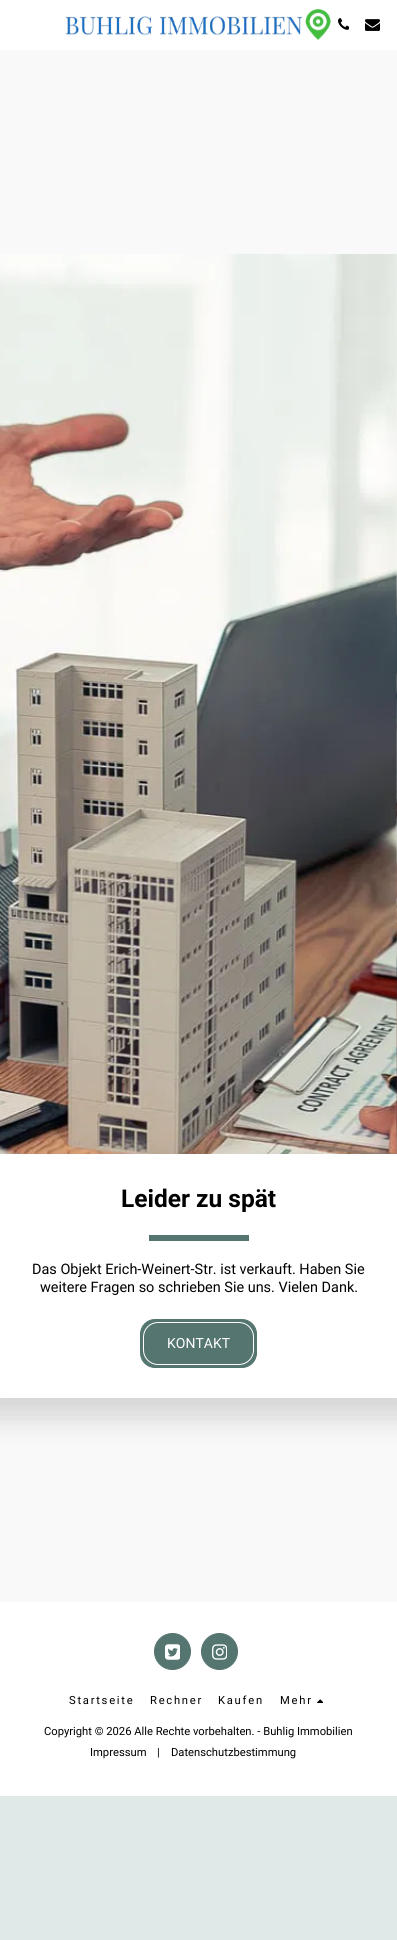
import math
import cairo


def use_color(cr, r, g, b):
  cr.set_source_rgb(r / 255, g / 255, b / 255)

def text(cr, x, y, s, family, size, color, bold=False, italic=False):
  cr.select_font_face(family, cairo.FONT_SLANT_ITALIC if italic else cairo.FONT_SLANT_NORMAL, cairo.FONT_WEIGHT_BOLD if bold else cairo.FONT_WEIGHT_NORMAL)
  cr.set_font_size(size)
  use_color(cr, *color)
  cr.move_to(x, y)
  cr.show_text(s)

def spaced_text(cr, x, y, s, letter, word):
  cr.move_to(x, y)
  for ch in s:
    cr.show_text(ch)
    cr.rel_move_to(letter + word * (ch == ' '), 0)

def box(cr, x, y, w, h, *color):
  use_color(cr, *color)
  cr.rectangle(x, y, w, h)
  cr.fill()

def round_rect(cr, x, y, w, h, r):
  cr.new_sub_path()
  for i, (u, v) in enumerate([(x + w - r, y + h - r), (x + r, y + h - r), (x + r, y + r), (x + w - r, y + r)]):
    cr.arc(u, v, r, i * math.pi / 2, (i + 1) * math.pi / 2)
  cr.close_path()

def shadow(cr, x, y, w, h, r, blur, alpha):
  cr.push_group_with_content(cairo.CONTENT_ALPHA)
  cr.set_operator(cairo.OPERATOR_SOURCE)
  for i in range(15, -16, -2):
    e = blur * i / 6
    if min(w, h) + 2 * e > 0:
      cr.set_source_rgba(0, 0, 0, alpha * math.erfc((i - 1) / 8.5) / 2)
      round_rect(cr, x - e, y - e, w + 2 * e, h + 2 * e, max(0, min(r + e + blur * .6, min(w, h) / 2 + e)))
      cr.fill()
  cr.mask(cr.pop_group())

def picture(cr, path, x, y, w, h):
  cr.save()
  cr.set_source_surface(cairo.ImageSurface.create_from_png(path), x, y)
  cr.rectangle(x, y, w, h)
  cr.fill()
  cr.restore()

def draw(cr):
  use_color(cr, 225, 233, 232)
  cr.paint()
  box(cr, 0, 0, 397, 50, 255, 255, 255)
  picture(cr, "img_01.png", 65, 9, 266, 31)
  picture(cr, "img_02.png", 338, 18, 11, 12)
  picture(cr, "img_03.png", 365, 19, 15, 12)
  box(cr, 0, 50, 397, 1552, 249, 249, 249)
  picture(cr, "img_04.png", 396, 254, 1, 900)
  picture(cr, "img_05.png", 0, 254, 397, 900)
  use_color(cr, 0, 0, 0)
  shadow(cr, -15, 1174, 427, 244, 5, 15, 0.15)
  box(cr, 0, 1154, 397, 244, 255, 255, 255)
  box(cr, 149, 1235, 100, 6, 85, 117, 113)
  round_rect(cr, 140.5, 1319.5, 116, 48, 14.5)
  cr.fill_preserve()
  cr.set_line_width(1)
  cr.stroke()
  round_rect(cr, 143.5, 1322.5, 110, 42, 14.5)
  use_color(cr, 255, 255, 255)
  cr.stroke()
  box(cr, 0, 1602, 397, 194, 255, 255, 255)
  use_color(cr, 85, 117, 113)
  cr.arc(172.5, 1651.5, 18, 0, 2 * math.pi)
  cr.fill_preserve()
  cr.stroke()
  picture(cr, "img_06.png", 165, 1644, 15, 16)
  cr.arc(219.5, 1651.5, 18, 0, 2 * math.pi)
  cr.fill_preserve()
  cr.stroke()
  picture(cr, "img_07.png", 212, 1644, 15, 16)
  picture(cr, "img_08.png", 317, 1699, 6, 4)
  text(cr, 121, 1207, "Leider zu spät", "Roboto", 24.5, (0, 0, 0), bold=True)
  text(cr, 32, 1274, "Das Objekt Erich-Weinert-Str. ist verkauft. Haben Sie", "Roboto", 14.45, (0, 0, 0))
  text(cr, 40, 1292, "weitere Fragen so schrieben Sie uns. Vielen Dank.", "Roboto", 14.45, (0, 0, 0))
  text(cr, 167, 1348, "KONTAKT", "Roboto", 14, (255, 255, 255))
  cr.set_font_size(11.2)
  use_color(cr, 0, 0, 0)
  spaced_text(cr, 69, 1704, "Startseite", 1.75, 0)
  spaced_text(cr, 150, 1704, "Rechner", 1.75, 0)
  spaced_text(cr, 218, 1704, "Kaufen", 1.75, 0)
  spaced_text(cr, 280, 1704, "Mehr", 1.75, 0)
  text(cr, 44, 1735, "Copyright © 2026 Alle Rechte vorbehalten. - Buhlig Immobilien", "Roboto", 11.2, (0, 0, 0))
  text(cr, 90, 1756, "Impressum", "Roboto", 11.2, (0, 0, 0))
  text(cr, 157, 1756, "|", "Roboto", 11.2, (0, 0, 0))
  text(cr, 171, 1756, "Datenschutzbestimmung", "Roboto", 11.2, (0, 0, 0))


surface = cairo.ImageSurface(cairo.FORMAT_RGB24, 397, 1940)
cr = cairo.Context(surface)
options = cairo.FontOptions()
options.set_hint_metrics(cairo.HINT_METRICS_OFF)
options.set_hint_style(cairo.HINT_STYLE_NONE)
cr.set_font_options(options)
cr.set_miter_limit(4)
draw(cr)
surface.write_to_png("out.png")
